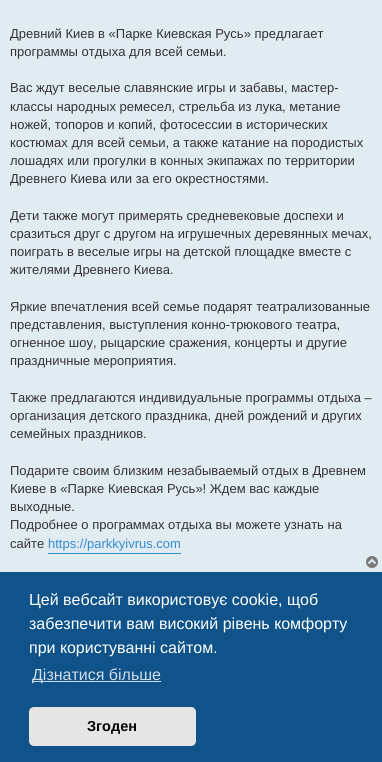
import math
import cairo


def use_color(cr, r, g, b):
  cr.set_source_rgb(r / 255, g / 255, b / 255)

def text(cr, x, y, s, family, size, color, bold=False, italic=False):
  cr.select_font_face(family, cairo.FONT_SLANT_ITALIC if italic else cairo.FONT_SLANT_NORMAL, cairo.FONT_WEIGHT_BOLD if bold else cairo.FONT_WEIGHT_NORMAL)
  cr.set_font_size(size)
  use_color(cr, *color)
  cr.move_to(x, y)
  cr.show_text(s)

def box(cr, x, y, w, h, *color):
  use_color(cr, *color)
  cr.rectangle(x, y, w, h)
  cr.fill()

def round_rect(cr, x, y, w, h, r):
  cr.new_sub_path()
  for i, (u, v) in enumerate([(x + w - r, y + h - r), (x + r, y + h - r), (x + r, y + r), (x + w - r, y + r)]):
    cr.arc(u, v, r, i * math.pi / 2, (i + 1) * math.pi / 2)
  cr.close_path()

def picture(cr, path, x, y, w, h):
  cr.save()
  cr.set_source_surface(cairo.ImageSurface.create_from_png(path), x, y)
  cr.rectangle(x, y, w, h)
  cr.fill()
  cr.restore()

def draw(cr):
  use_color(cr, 225, 235, 242)
  cr.paint()
  box(cr, 48, 553, 133, 1, 54, 138, 210)
  picture(cr, "img_01.png", 366, 556, 12, 12)
  box(cr, 0, 572, 382, 190, 15, 83, 138)
  box(cr, 32, 681, 129, 1, 207, 221, 232)
  use_color(cr, 229, 229, 229)
  round_rect(cr, 29, 707, 167, 39, 5)
  cr.fill()
  text(cr, 10, 38, "Древний Киев в «Парке Киевская Русь» предлагает", "Liberation Sans", 13, (51, 51, 51))
  text(cr, 10, 56, "программы отдыха для всей семьи.", "Liberation Sans", 13, (51, 51, 51))
  text(cr, 10, 92, "Вас ждут веселые славянские игры и забавы, мастер-", "Liberation Sans", 13, (51, 51, 51))
  text(cr, 10, 111, "классы народных ремесел, стрельба из лука, метание", "Liberation Sans", 13, (51, 51, 51))
  text(cr, 10, 129, "ножей, топоров и копий, фотосессии в исторических", "Liberation Sans", 13, (51, 51, 51))
  text(cr, 10, 147, "костюмах для всей семьи, а также катание на породистых", "Liberation Sans", 13, (51, 51, 51))
  text(cr, 10, 165, "лошадях или прогулки в конных экипажах по территории", "Liberation Sans", 13, (51, 51, 51))
  text(cr, 10, 183, "Древнего Киева или за его окрестностями.", "Liberation Sans", 13, (51, 51, 51))
  text(cr, 10, 220, "Дети также могут примерять средневековые доспехи и", "Liberation Sans", 13, (51, 51, 51))
  text(cr, 10, 238, "сразиться друг с другом на игрушечных деревянных мечах,", "Liberation Sans", 13, (51, 51, 51))
  text(cr, 10, 256, "поиграть в веселые игры на детской площадке вместе с", "Liberation Sans", 13, (51, 51, 51))
  text(cr, 10, 274, "жителями Древнего Киева.", "Liberation Sans", 13, (51, 51, 51))
  text(cr, 10, 311, "Яркие впечатления всей семье подарят театрализованные", "Liberation Sans", 13, (51, 51, 51))
  text(cr, 10, 329, "представления, выступления конно-трюкового театра,", "Liberation Sans", 13, (51, 51, 51))
  text(cr, 10, 347, "огненное шоу, рыцарские сражения, концерты и другие", "Liberation Sans", 13, (51, 51, 51))
  text(cr, 10, 365, "праздничные мероприятия.", "Liberation Sans", 13, (51, 51, 51))
  text(cr, 10, 402, "Также предлагаются индивидуальные программы отдыха –", "Liberation Sans", 13, (51, 51, 51))
  text(cr, 10, 420, "организация детского праздника, дней рождений и других", "Liberation Sans", 13, (51, 51, 51))
  text(cr, 10, 438, "семейных праздников.", "Liberation Sans", 13, (51, 51, 51))
  text(cr, 10, 475, "Подарите своим близким незабываемый отдых в Древнем", "Liberation Sans", 13, (51, 51, 51))
  text(cr, 10, 493, "Киеве в «Парке Киевская Русь»! Ждем вас каждые", "Liberation Sans", 13, (51, 51, 51))
  text(cr, 10, 511, "выходные.", "Liberation Sans", 13, (51, 51, 51))
  text(cr, 10, 529, "Подробнее о программах отдыха вы можете узнать на", "Liberation Sans", 13, (51, 51, 51))
  text(cr, 10, 548, "сайте", "Liberation Sans", 13, (51, 51, 51))
  text(cr, 48, 548, "https://parkkyivrus.com", "Liberation Sans", 13, (54, 138, 210))
  text(cr, 29, 605, "Цей вебсайт використовує cookie, щоб", "Liberation Sans", 16, (255, 255, 255))
  text(cr, 29, 629, "забезпечити вам високий рівень комфорту", "Liberation Sans", 16, (255, 255, 255))
  text(cr, 29, 653, "при користуванні сайтом.", "Liberation Sans", 16, (255, 255, 255))
  text(cr, 32, 680, "Дізнатися більше", "Liberation Sans", 16, (207, 221, 232))
  text(cr, 87, 731, "Згоден", "Liberation Sans", 14.5, (0, 0, 0), bold=True)


surface = cairo.ImageSurface(cairo.FORMAT_RGB24, 382, 762)
cr = cairo.Context(surface)
options = cairo.FontOptions()
options.set_hint_metrics(cairo.HINT_METRICS_OFF)
options.set_hint_style(cairo.HINT_STYLE_NONE)
cr.set_font_options(options)
cr.set_miter_limit(4)
draw(cr)
surface.write_to_png("out.png")
